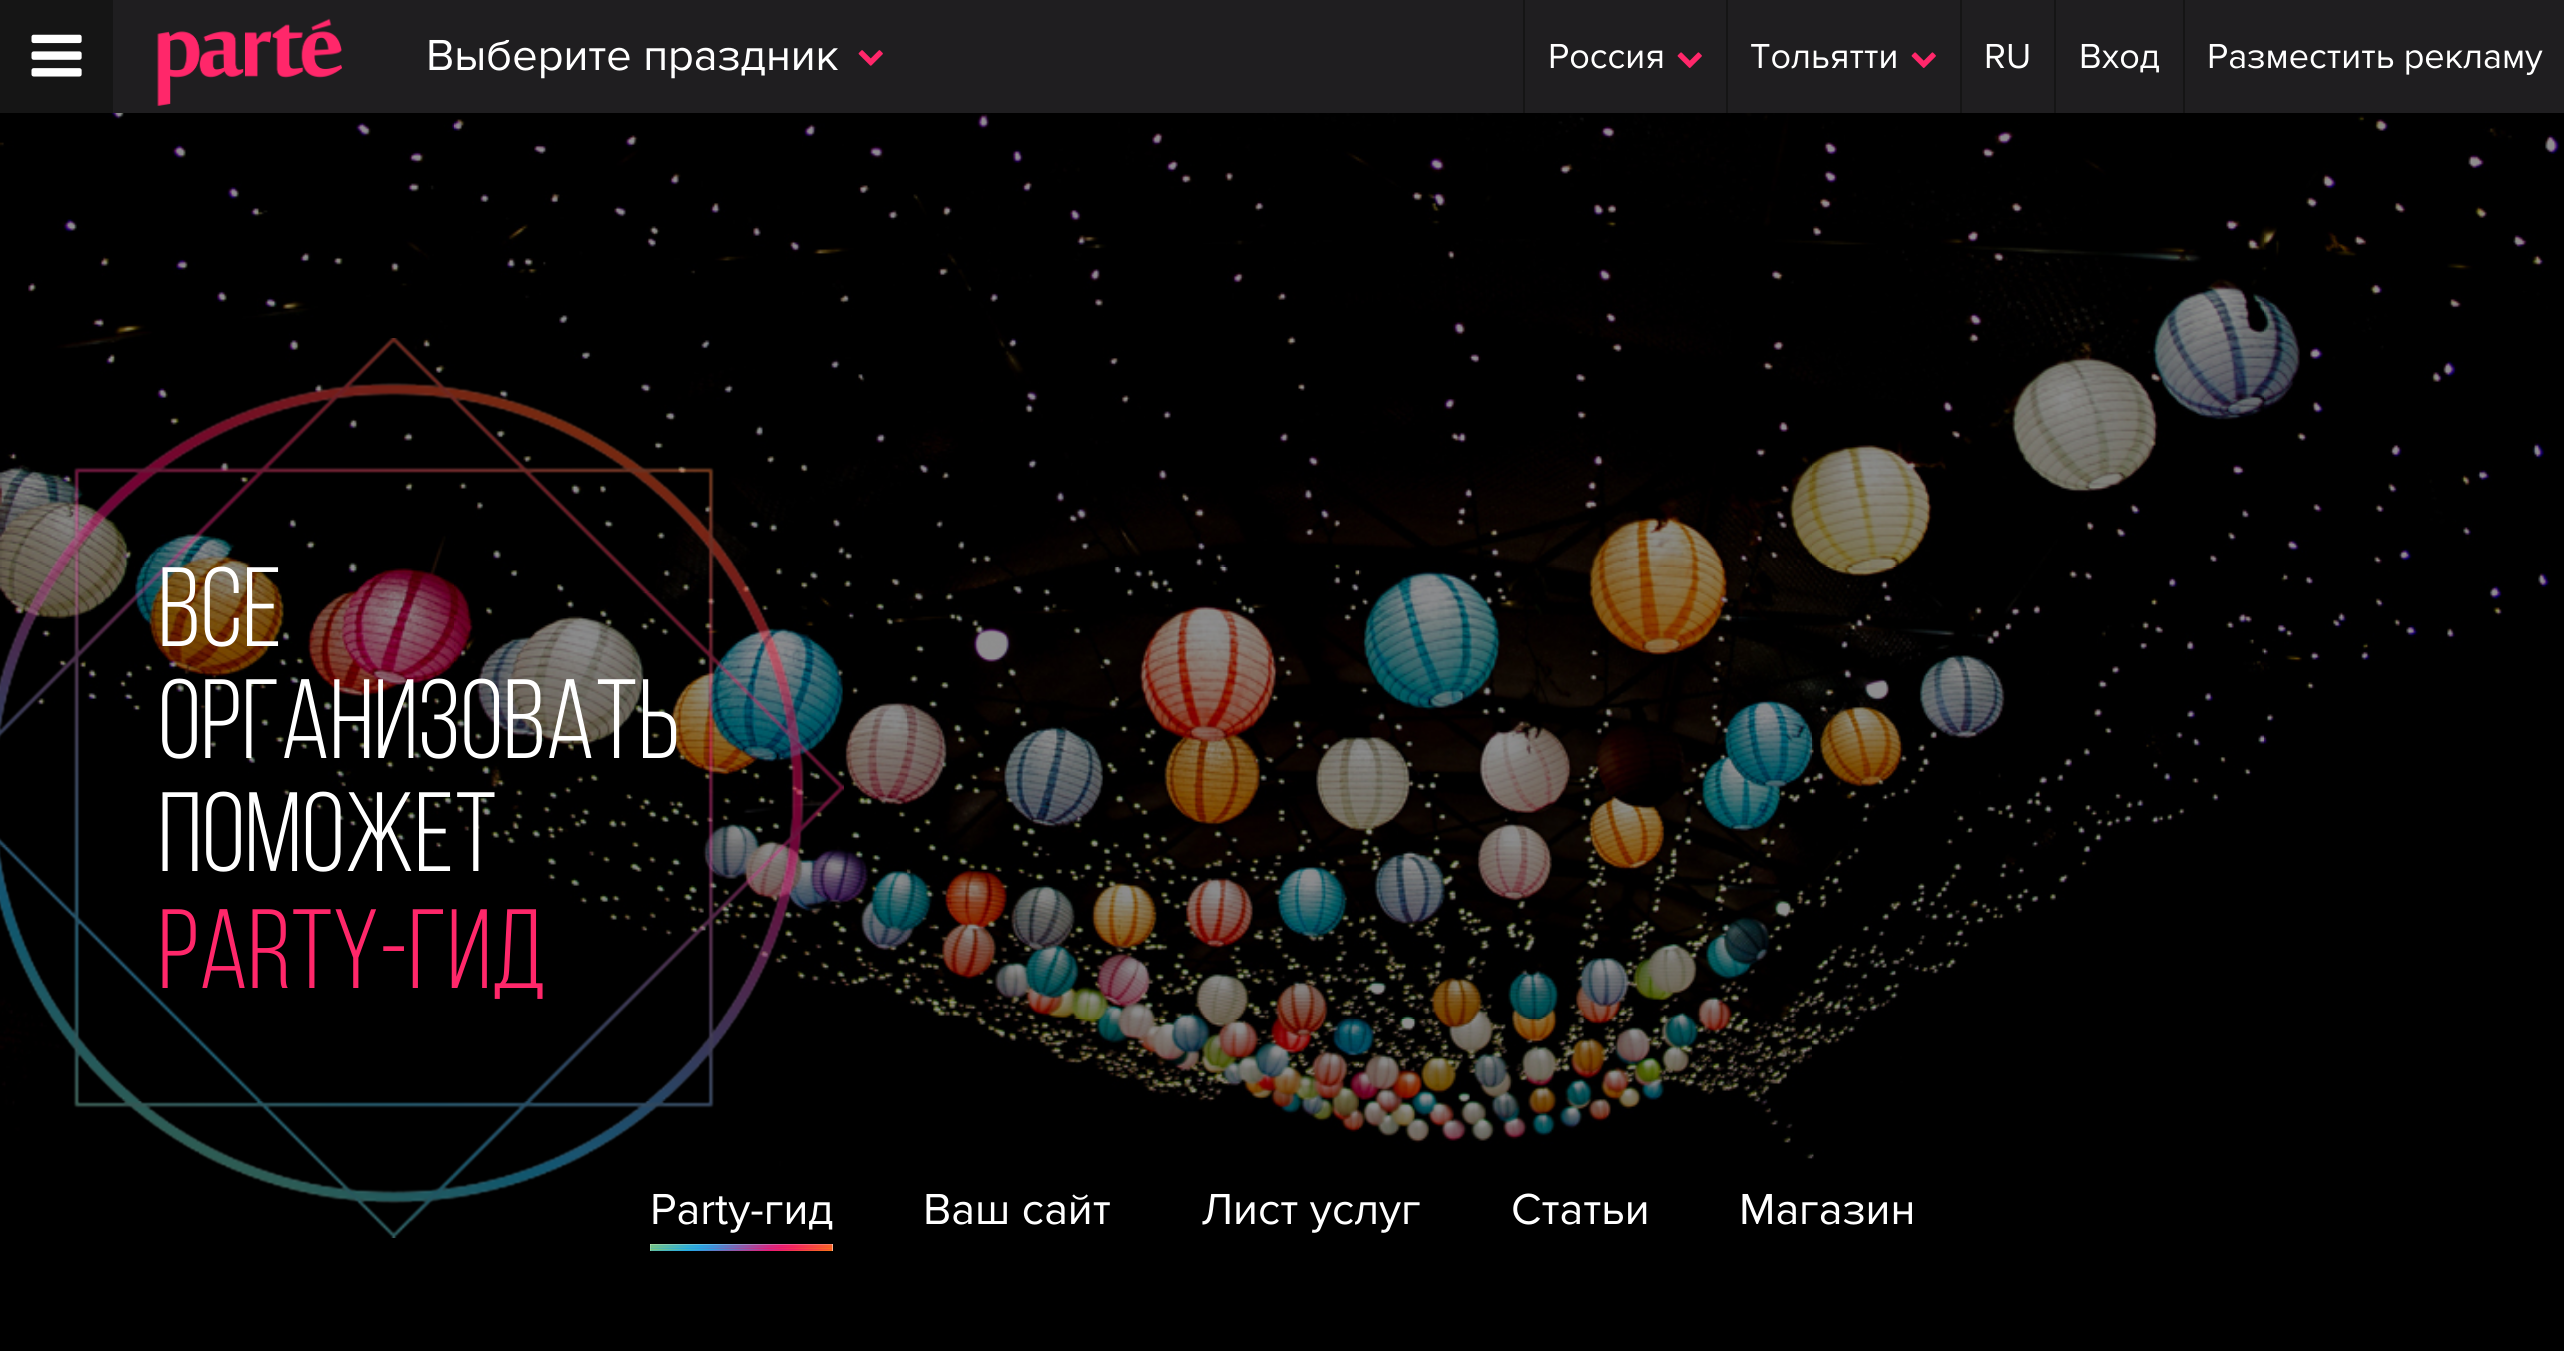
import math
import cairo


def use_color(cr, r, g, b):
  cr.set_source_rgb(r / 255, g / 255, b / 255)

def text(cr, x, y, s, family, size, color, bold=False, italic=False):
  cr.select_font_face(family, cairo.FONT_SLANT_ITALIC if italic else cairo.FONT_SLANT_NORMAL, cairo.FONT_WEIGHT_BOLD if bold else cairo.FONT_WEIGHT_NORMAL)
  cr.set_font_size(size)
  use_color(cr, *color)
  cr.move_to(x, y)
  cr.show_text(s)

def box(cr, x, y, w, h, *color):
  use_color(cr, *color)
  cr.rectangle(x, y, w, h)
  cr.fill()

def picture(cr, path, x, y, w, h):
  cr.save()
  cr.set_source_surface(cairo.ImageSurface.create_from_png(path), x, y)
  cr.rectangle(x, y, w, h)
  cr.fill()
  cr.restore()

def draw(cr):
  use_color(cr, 31, 30, 32)
  cr.paint()
  box(cr, 0, 0, 113, 113, 21, 21, 21)
  picture(cr, "img_01.png", 31, 34, 51, 43)
  picture(cr, "img_02.png", 157, 18, 185, 88)
  picture(cr, "img_03.png", 858, 50, 25, 16)
  box(cr, 1523, 0, 2, 113, 21, 21, 21)
  picture(cr, "img_04.png", 1677, 52, 25, 16)
  box(cr, 1726, 0, 2, 113, 21, 21, 21)
  picture(cr, "img_04.png", 1911, 52, 25, 16)
  box(cr, 1960, 0, 2, 113, 21, 21, 21)
  box(cr, 2054, 0, 2, 113, 21, 21, 21)
  box(cr, 2183, 0, 2, 113, 21, 21, 21)
  picture(cr, "img_05.png", 0, 113, 2564, 1238)
  picture(cr, "img_06.png", 0, 338, 844, 900)
  box(cr, 650, 1244, 183, 7, 255, 255, 255)
  picture(cr, "img_07.png", 650, 1244, 183, 7)
  text(cr, 426, 70, "Выберите праздник", "Proxima Nova", 45, (255, 255, 255))
  text(cr, 1548, 68, "Россия", "Proxima Nova", 36, (255, 255, 255))
  text(cr, 1750, 68, "Тольятти", "Proxima Nova", 36, (255, 255, 255))
  text(cr, 1984, 68, "RU", "Proxima Nova", 36, (255, 255, 255))
  text(cr, 2079, 68, "Вход", "Proxima Nova", 36, (255, 255, 255))
  text(cr, 2207, 68, "Разместить рекламу", "Proxima Nova", 36, (255, 255, 255))
  text(cr, 158, 646, "Все", "Bebas Neue", 112.5, (255, 255, 255))
  text(cr, 158, 758, "организовать", "Bebas Neue", 112.5, (255, 255, 255))
  text(cr, 158, 871, "поможет", "Bebas Neue", 112.5, (255, 255, 255))
  text(cr, 158, 988, "party-гид", "Bebas Neue", 112.5, (255, 39, 106))
  text(cr, 650, 1224, "Party-гид", "Proxima Nova", 45, (255, 255, 255))
  text(cr, 923, 1224, "Ваш сайт", "Proxima Nova", 45, (255, 255, 255))
  text(cr, 1201, 1224, "Лист услуг", "Proxima Nova", 45, (255, 255, 255))
  text(cr, 1511, 1224, "Статьи", "Proxima Nova", 45, (255, 255, 255))
  text(cr, 1739, 1224, "Магазин", "Proxima Nova", 45, (255, 255, 255))


surface = cairo.ImageSurface(cairo.FORMAT_RGB24, 2564, 1351)
cr = cairo.Context(surface)
options = cairo.FontOptions()
options.set_hint_metrics(cairo.HINT_METRICS_OFF)
options.set_hint_style(cairo.HINT_STYLE_NONE)
cr.set_font_options(options)
cr.set_miter_limit(4)
draw(cr)
surface.write_to_png("out.png")
